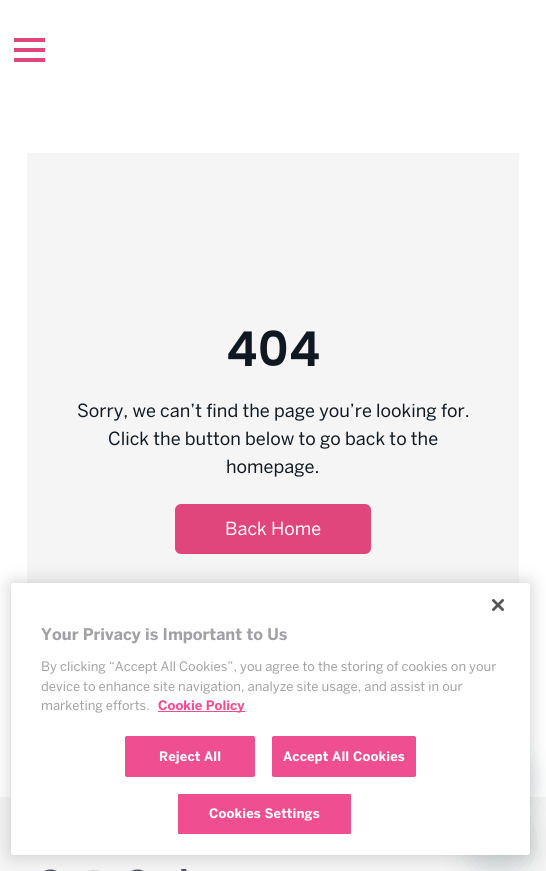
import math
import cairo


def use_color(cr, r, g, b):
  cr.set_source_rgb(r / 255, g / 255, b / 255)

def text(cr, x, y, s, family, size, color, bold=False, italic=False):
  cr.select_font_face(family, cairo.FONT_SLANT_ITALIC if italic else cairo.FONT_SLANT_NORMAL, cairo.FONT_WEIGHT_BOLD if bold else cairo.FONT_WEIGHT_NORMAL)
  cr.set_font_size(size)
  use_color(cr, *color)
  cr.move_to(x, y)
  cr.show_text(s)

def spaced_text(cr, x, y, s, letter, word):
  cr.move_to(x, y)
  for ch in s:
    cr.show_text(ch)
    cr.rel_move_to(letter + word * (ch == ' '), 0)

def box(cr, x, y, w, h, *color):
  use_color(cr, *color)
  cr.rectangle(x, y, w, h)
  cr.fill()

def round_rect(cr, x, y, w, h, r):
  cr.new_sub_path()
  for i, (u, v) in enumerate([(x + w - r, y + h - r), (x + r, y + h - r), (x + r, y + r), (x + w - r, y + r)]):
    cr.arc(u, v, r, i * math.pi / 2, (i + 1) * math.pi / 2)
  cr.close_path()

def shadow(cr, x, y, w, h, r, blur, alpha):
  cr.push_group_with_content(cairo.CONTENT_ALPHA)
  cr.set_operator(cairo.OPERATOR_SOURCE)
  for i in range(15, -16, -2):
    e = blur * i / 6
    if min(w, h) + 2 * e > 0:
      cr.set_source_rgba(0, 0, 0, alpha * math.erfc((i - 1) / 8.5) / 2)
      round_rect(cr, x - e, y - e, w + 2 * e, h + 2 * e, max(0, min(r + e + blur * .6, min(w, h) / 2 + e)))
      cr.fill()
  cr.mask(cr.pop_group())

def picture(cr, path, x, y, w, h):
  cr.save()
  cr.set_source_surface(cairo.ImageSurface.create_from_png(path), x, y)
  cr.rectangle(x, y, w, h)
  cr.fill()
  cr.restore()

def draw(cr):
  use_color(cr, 255, 255, 255)
  cr.paint()
  use_color(cr, 224, 69, 123)
  cr.rectangle(14.5, 48.5, 30, 3)
  cr.fill_preserve()
  cr.set_line_width(1)
  cr.stroke()
  cr.rectangle(14.5, 38.5, 30, 3)
  cr.fill_preserve()
  cr.stroke()
  cr.rectangle(14.5, 58.5, 30, 3)
  cr.fill_preserve()
  cr.stroke()
  box(cr, 27, 153, 492, 430, 246, 245, 245)
  use_color(cr, 224, 69, 123)
  round_rect(cr, 175, 504, 196, 50, 6)
  cr.fill()
  box(cr, 0, 797, 546, 74, 246, 245, 245)
  picture(cr, "img_02.png", 44, 869, 13, 2)
  picture(cr, "img_03.png", 87, 870, 13, 1)
  picture(cr, "img_02.png", 131, 869, 13, 2)
  picture(cr, "img_04.png", 181, 869, 6, 2)
  use_color(cr, 0, 0, 0)
  shadow(cr, 11, 583, 519, 272, 2.5, 9, 0.2)
  use_color(cr, 23, 73, 77)
  shadow(cr, 432, 759, 98, 44, 20, 15, 0.15)
  shadow(cr, 466, 811, 64, 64, 32, 15, 0.15)
  use_color(cr, 255, 255, 255)
  round_rect(cr, 11, 583, 519, 272, 2.5)
  cr.fill()
  picture(cr, "img_01.png", 492, 599, 12, 12)
  box(cr, 158, 711, 87, 1, 239, 79, 145)
  round_rect(cr, 125.5, 736.5, 129, 40, 1.5)
  cr.fill_preserve()
  cr.stroke()
  round_rect(cr, 272.5, 736.5, 143, 40, 1.5)
  cr.fill_preserve()
  cr.stroke()
  round_rect(cr, 177.5, 793.5, 174, 41, 1.5)
  cr.fill_preserve()
  use_color(cr, 255, 255, 255)
  cr.stroke()
  text(cr, 226, 366, "404", "Poppins SemiBold", 48, (16, 25, 33))
  text(cr, 77, 417, "Sorry, we can’t find the page you’re looking for.", "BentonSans", 18, (16, 25, 33))
  text(cr, 108, 445, "Click the button below to go back to the", "BentonSans", 18, (16, 25, 33))
  text(cr, 226, 473, "homepage.", "BentonSans", 18, (16, 25, 33))
  text(cr, 225, 535, "Back Home", "BentonSans", 18, (255, 255, 255))
  text(cr, 41, 640, "Your Privacy is Important to Us", "BentonSans", 16, (161, 161, 164), bold=True)
  text(cr, 41, 671, "By clicking “Accept All Cookies”, you agree to the storing of cookies on your", "BentonSans", 13, (161, 161, 164))
  text(cr, 41, 691, "device to enhance site navigation, analyze site usage, and assist in our", "BentonSans", 13, (161, 161, 164))
  text(cr, 41, 710, "marketing efforts.", "BentonSans", 13, (161, 161, 164))
  text(cr, 158, 710, "Cookie Policy", "BentonSans", 13, (239, 79, 145), bold=True)
  use_color(cr, 255, 255, 255)
  spaced_text(cr, 159, 761, "Reject All", 0.1, 0)
  spaced_text(cr, 283, 761, "Accept All Cookies", 0.1, 0)
  spaced_text(cr, 209, 818, "Cookies Settings", 0.1, 0)


surface = cairo.ImageSurface(cairo.FORMAT_RGB24, 546, 871)
cr = cairo.Context(surface)
options = cairo.FontOptions()
options.set_hint_metrics(cairo.HINT_METRICS_OFF)
options.set_hint_style(cairo.HINT_STYLE_NONE)
cr.set_font_options(options)
cr.set_miter_limit(4)
draw(cr)
surface.write_to_png("out.png")
